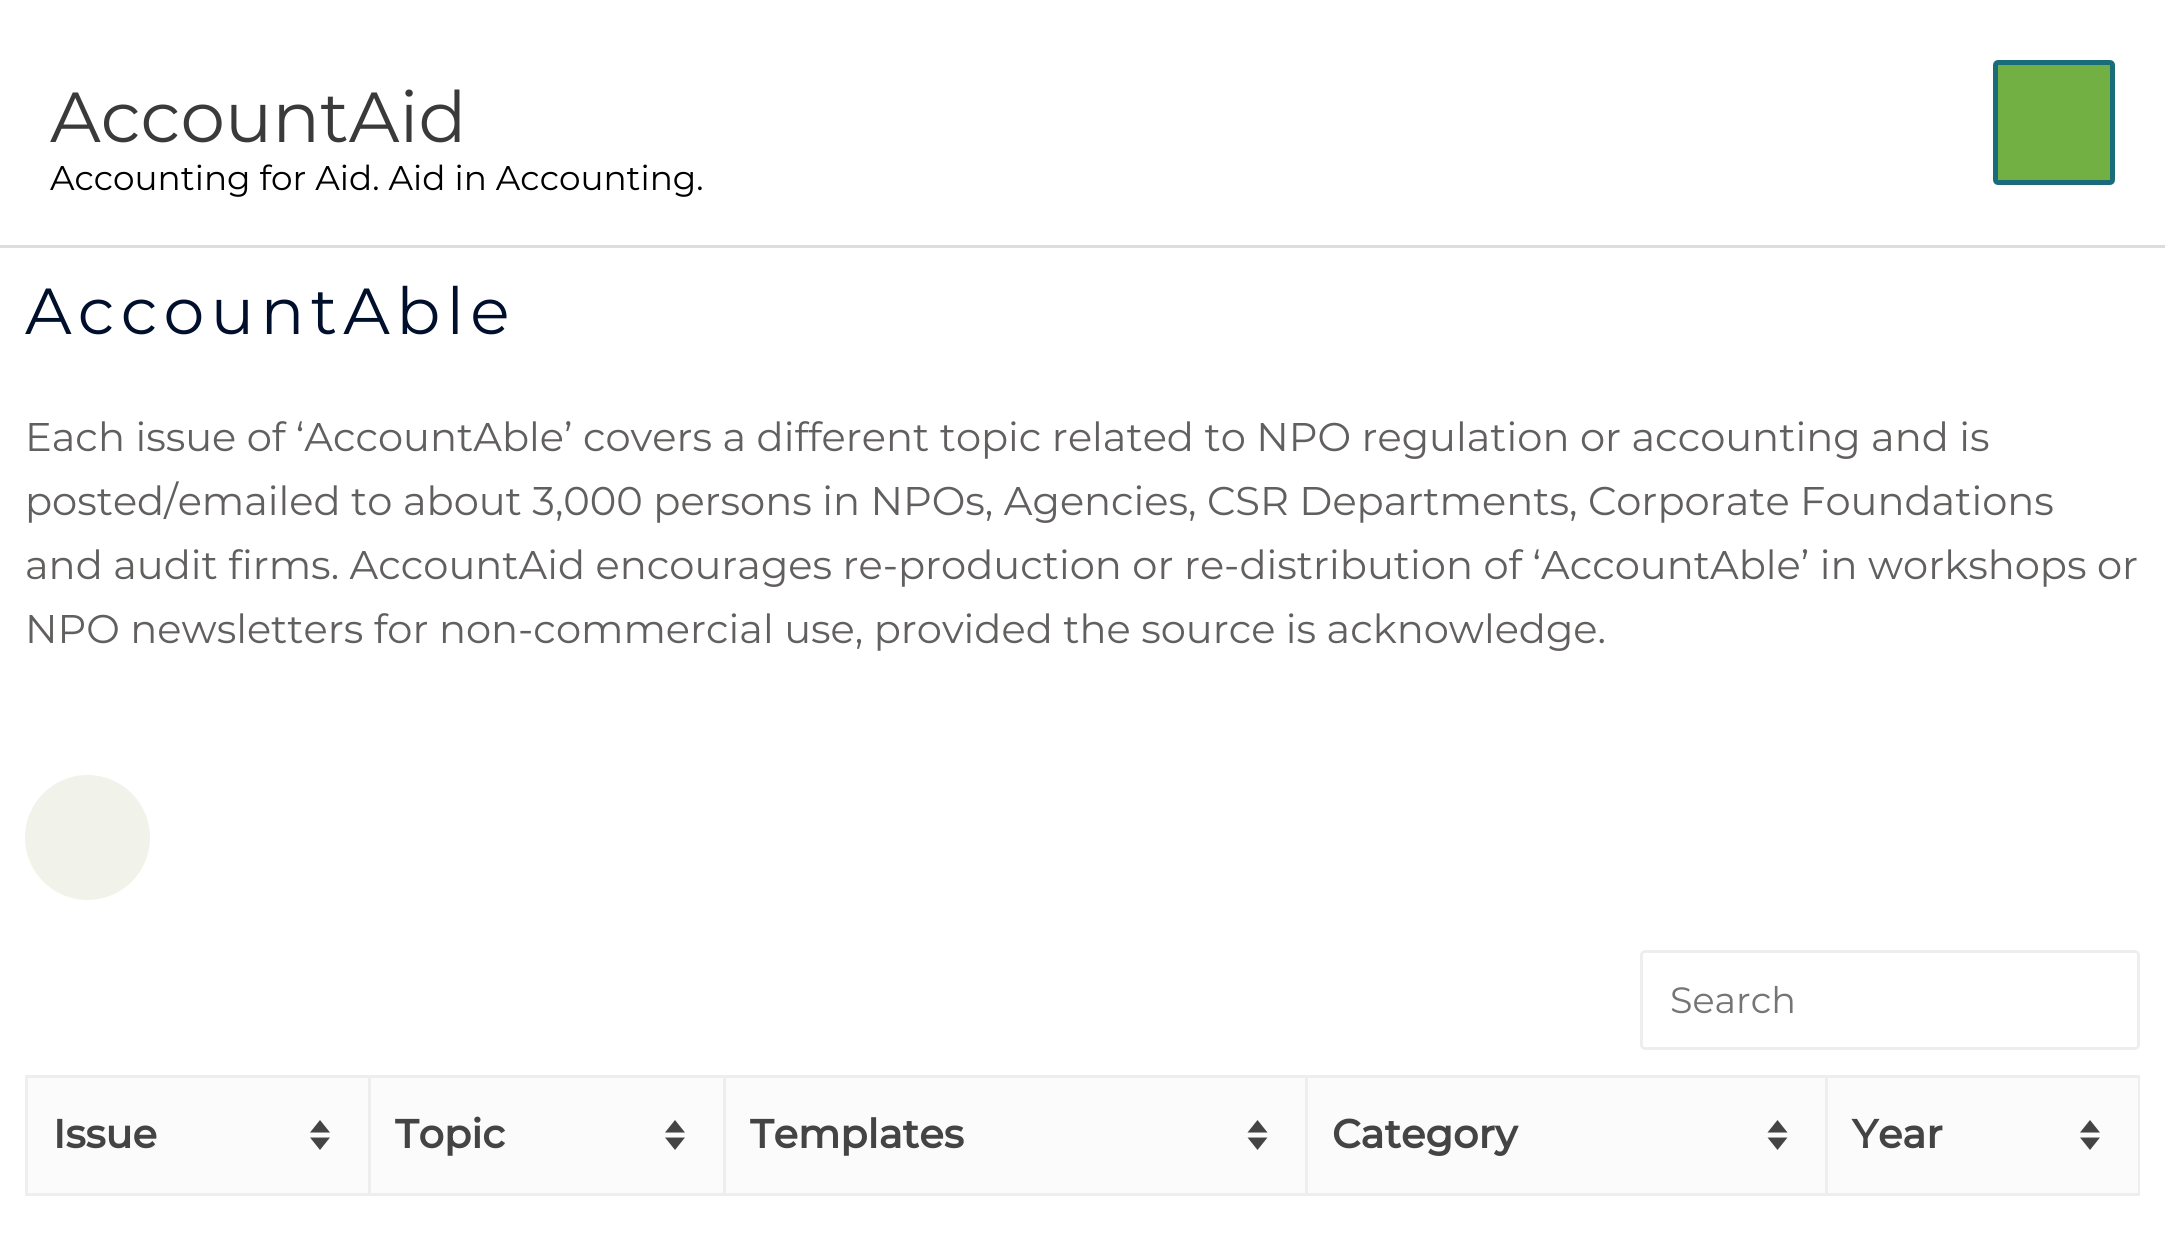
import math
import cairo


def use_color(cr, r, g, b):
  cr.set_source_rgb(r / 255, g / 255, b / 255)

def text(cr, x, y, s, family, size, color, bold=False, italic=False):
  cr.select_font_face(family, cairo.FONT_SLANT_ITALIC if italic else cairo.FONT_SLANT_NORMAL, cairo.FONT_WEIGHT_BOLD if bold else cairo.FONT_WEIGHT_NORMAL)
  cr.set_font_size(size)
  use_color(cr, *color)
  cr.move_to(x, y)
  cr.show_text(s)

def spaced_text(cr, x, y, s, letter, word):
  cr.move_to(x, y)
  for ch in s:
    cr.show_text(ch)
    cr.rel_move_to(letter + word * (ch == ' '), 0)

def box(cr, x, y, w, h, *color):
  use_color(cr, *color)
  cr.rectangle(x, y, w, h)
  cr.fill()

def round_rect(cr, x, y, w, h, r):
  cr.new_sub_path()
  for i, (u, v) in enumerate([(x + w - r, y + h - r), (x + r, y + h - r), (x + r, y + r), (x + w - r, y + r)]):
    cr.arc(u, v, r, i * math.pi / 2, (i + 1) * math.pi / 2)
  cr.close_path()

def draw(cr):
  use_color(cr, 255, 255, 255)
  cr.paint()
  box(cr, 0, 245, 2165, 3, 221, 221, 221)
  use_color(cr, 114, 176, 67)
  round_rect(cr, 1995.5, 62.5, 117, 120, 2.5)
  cr.fill_preserve()
  use_color(cr, 26, 108, 122)
  cr.set_line_width(5)
  cr.stroke()
  use_color(cr, 241, 243, 234)
  cr.arc(87.5, 837.5, 62.5, 0, 2 * math.pi)
  cr.fill()
  round_rect(cr, 1641.5, 951.5, 497, 97, 3.5)
  use_color(cr, 238, 238, 238)
  cr.set_line_width(3)
  cr.stroke()
  box(cr, 25, 1075, 2115, 3, 238, 238, 238)
  box(cr, 2138, 1075, 2, 120, 238, 238, 238)
  box(cr, 25, 1193, 2115, 3, 238, 238, 238)
  box(cr, 25, 1075, 3, 120, 238, 238, 238)
  box(cr, 28, 1078, 2110, 115, 251, 251, 251)
  use_color(cr, 68, 68, 68)
  cr.new_path()
  cr.move_to(330, 1132.5)
  cr.line_to(310, 1132.5)
  cr.line_to(320, 1120)
  cr.close_path()
  cr.move_to(310, 1137.5)
  cr.line_to(330, 1137.5)
  cr.line_to(320, 1150)
  cr.close_path()
  cr.fill()
  box(cr, 368, 1075, 3, 120, 238, 238, 238)
  use_color(cr, 68, 68, 68)
  cr.new_path()
  cr.move_to(685, 1132.5)
  cr.line_to(665, 1132.5)
  cr.line_to(675, 1120)
  cr.close_path()
  cr.move_to(665, 1137.5)
  cr.line_to(685, 1137.5)
  cr.line_to(675, 1150)
  cr.close_path()
  cr.fill()
  box(cr, 723, 1075, 3, 120, 238, 238, 238)
  use_color(cr, 68, 68, 68)
  cr.new_path()
  cr.move_to(1267.5, 1132.5)
  cr.line_to(1247.5, 1132.5)
  cr.line_to(1257.5, 1120)
  cr.close_path()
  cr.move_to(1247.5, 1137.5)
  cr.line_to(1267.5, 1137.5)
  cr.line_to(1257.5, 1150)
  cr.close_path()
  cr.fill()
  box(cr, 1305, 1075, 3, 120, 238, 238, 238)
  use_color(cr, 68, 68, 68)
  cr.new_path()
  cr.move_to(1787.5, 1132.5)
  cr.line_to(1767.5, 1132.5)
  cr.line_to(1777.5, 1120)
  cr.close_path()
  cr.move_to(1767.5, 1137.5)
  cr.line_to(1787.5, 1137.5)
  cr.line_to(1777.5, 1150)
  cr.close_path()
  cr.fill()
  box(cr, 1825, 1075, 3, 120, 238, 238, 238)
  use_color(cr, 68, 68, 68)
  cr.new_path()
  cr.move_to(2100, 1132.5)
  cr.line_to(2080, 1132.5)
  cr.line_to(2090, 1120)
  cr.close_path()
  cr.move_to(2080, 1137.5)
  cr.line_to(2100, 1137.5)
  cr.line_to(2090, 1150)
  cr.close_path()
  cr.fill()
  text(cr, 50, 142, "AccountAid", "Montserrat", 70.75, (58, 58, 58))
  text(cr, 50, 190, "Accounting for Aid. Aid in Accounting.", "Montserrat", 34.25, (0, 0, 0))
  cr.set_font_size(65)
  use_color(cr, 0, 15, 43)
  spaced_text(cr, 25, 334, "AccountAble", 6.25, 0)
  text(cr, 25, 451, "Each issue of ‘AccountAble’ covers a different topic related to NPO regulation or accounting and is", "Montserrat", 40, (98, 95, 95))
  text(cr, 25, 515, "posted/emailed to about 3,000 persons in NPOs, Agencies, CSR Departments, Corporate Foundations", "Montserrat", 40, (98, 95, 95))
  text(cr, 25, 579, "and audit firms. AccountAid encourages re-production or re-distribution of ‘AccountAble’ in workshops or", "Montserrat", 40, (98, 95, 95))
  text(cr, 25, 643, "NPO newsletters for non-commercial use, provided the source is acknowledge.", "Montserrat", 40, (98, 95, 95))
  text(cr, 1670, 1013, "Search", "Montserrat", 36.5, (117, 117, 117))
  text(cr, 53, 1148, "Issue", "Montserrat", 40, (68, 68, 68), bold=True)
  text(cr, 395, 1148, "Topic", "Montserrat", 40, (68, 68, 68), bold=True)
  text(cr, 750, 1148, "Templates", "Montserrat", 40, (68, 68, 68), bold=True)
  text(cr, 1332, 1148, "Category", "Montserrat", 40, (68, 68, 68), bold=True)
  text(cr, 1852, 1148, "Year", "Montserrat", 40, (68, 68, 68), bold=True)


surface = cairo.ImageSurface(cairo.FORMAT_RGB24, 2165, 1249)
cr = cairo.Context(surface)
options = cairo.FontOptions()
options.set_hint_metrics(cairo.HINT_METRICS_OFF)
options.set_hint_style(cairo.HINT_STYLE_NONE)
cr.set_font_options(options)
cr.set_miter_limit(4)
draw(cr)
surface.write_to_png("out.png")
